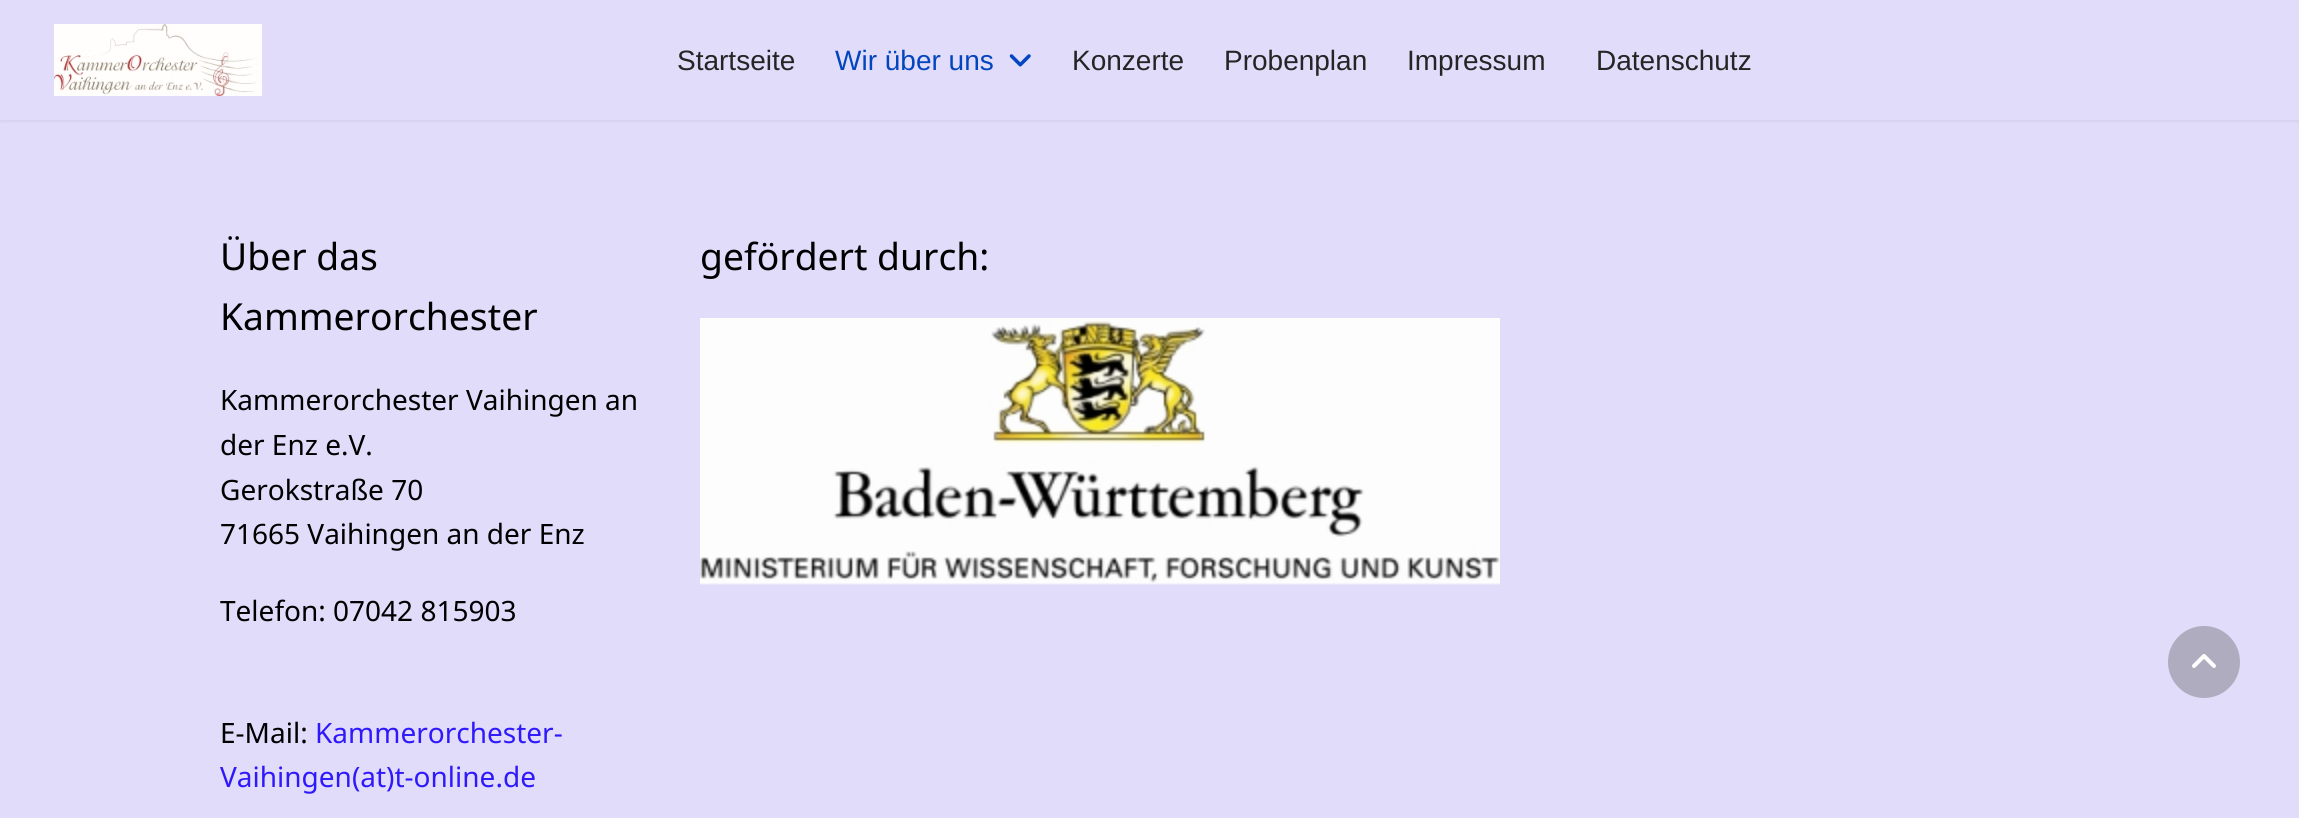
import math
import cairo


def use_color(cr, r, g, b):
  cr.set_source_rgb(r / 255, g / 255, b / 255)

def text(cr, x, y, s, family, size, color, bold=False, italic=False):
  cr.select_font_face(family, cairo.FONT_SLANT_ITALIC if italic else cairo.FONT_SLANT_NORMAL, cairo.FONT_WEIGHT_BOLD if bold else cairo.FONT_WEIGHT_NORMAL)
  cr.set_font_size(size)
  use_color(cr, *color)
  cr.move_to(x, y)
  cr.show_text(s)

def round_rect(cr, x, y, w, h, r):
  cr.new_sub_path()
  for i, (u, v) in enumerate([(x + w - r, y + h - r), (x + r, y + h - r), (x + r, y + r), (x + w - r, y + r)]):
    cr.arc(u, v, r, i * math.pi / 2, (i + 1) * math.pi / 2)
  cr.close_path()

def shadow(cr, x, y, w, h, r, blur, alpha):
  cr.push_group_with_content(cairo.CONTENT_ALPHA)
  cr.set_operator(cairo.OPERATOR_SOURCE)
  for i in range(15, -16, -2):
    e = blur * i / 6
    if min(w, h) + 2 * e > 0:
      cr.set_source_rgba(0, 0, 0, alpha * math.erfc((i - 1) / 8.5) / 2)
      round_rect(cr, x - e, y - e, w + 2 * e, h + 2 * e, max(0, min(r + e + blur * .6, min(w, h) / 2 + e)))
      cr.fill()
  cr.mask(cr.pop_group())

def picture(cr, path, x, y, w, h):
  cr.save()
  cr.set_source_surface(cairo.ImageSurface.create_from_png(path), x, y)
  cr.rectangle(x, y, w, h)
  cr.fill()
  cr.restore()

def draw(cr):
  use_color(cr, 224, 220, 250)
  cr.paint()
  cr.save()
  cr.rectangle(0, 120, 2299, 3)
  cr.clip()
  use_color(cr, 0, 0, 0)
  shadow(cr, 0, 0, 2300, 120, 0, 4, 0.1)
  cr.restore()
  picture(cr, "img_01.png", 54, 24, 208, 72)
  picture(cr, "img_02.png", 1009, 54, 22, 13)
  picture(cr, "img_03.png", 700, 318, 800, 267)
  use_color(cr, 174, 172, 190)
  cr.arc(2204, 662, 36, 0, 2 * math.pi)
  cr.fill()
  picture(cr, "img_04.png", 2192, 654, 24, 14)
  text(cr, 677, 70, "Startseite", "Liberation Sans", 28, (37, 37, 37))
  text(cr, 835, 70, "Wir über uns", "Liberation Sans", 28, (3, 69, 191))
  text(cr, 1072, 70, "Konzerte", "Liberation Sans", 28, (37, 37, 37))
  text(cr, 1224, 70, "Probenplan", "Liberation Sans", 28, (37, 37, 37))
  text(cr, 1407, 70, "Impressum", "Liberation Sans", 28, (37, 37, 37))
  text(cr, 1596, 70, "Datenschutz", "Liberation Sans", 28, (37, 37, 37))
  text(cr, 220, 270, "Über das", "Noto Sans", 37.25, (0, 0, 0))
  text(cr, 220, 330, "Kammerorchester", "Noto Sans", 37.25, (0, 0, 0))
  text(cr, 220, 410, "Kammerorchester Vaihingen an", "Noto Sans", 28, (0, 0, 0))
  text(cr, 220, 455, "der Enz e.V.", "Noto Sans", 28, (0, 0, 0))
  text(cr, 220, 500, "Gerokstraße 70", "Noto Sans", 28, (0, 0, 0))
  text(cr, 220, 544, "71665 Vaihingen an der Enz", "Noto Sans", 28, (0, 0, 0))
  text(cr, 220, 621, "Telefon: 07042 815903", "Noto Sans", 28, (0, 0, 0))
  text(cr, 220, 743, "E-Mail:", "Noto Sans", 28, (0, 0, 0))
  text(cr, 315, 743, "Kammerorchester-", "Noto Sans", 28, (47, 25, 250))
  text(cr, 220, 787, "Vaihingen(at)t-online.de", "Noto Sans", 28, (47, 25, 250))
  text(cr, 700, 270, "gefördert durch:", "Noto Sans", 37.25, (0, 0, 0))


surface = cairo.ImageSurface(cairo.FORMAT_RGB24, 2299, 818)
cr = cairo.Context(surface)
options = cairo.FontOptions()
options.set_hint_metrics(cairo.HINT_METRICS_OFF)
options.set_hint_style(cairo.HINT_STYLE_NONE)
cr.set_font_options(options)
cr.set_miter_limit(4)
draw(cr)
surface.write_to_png("out.png")
